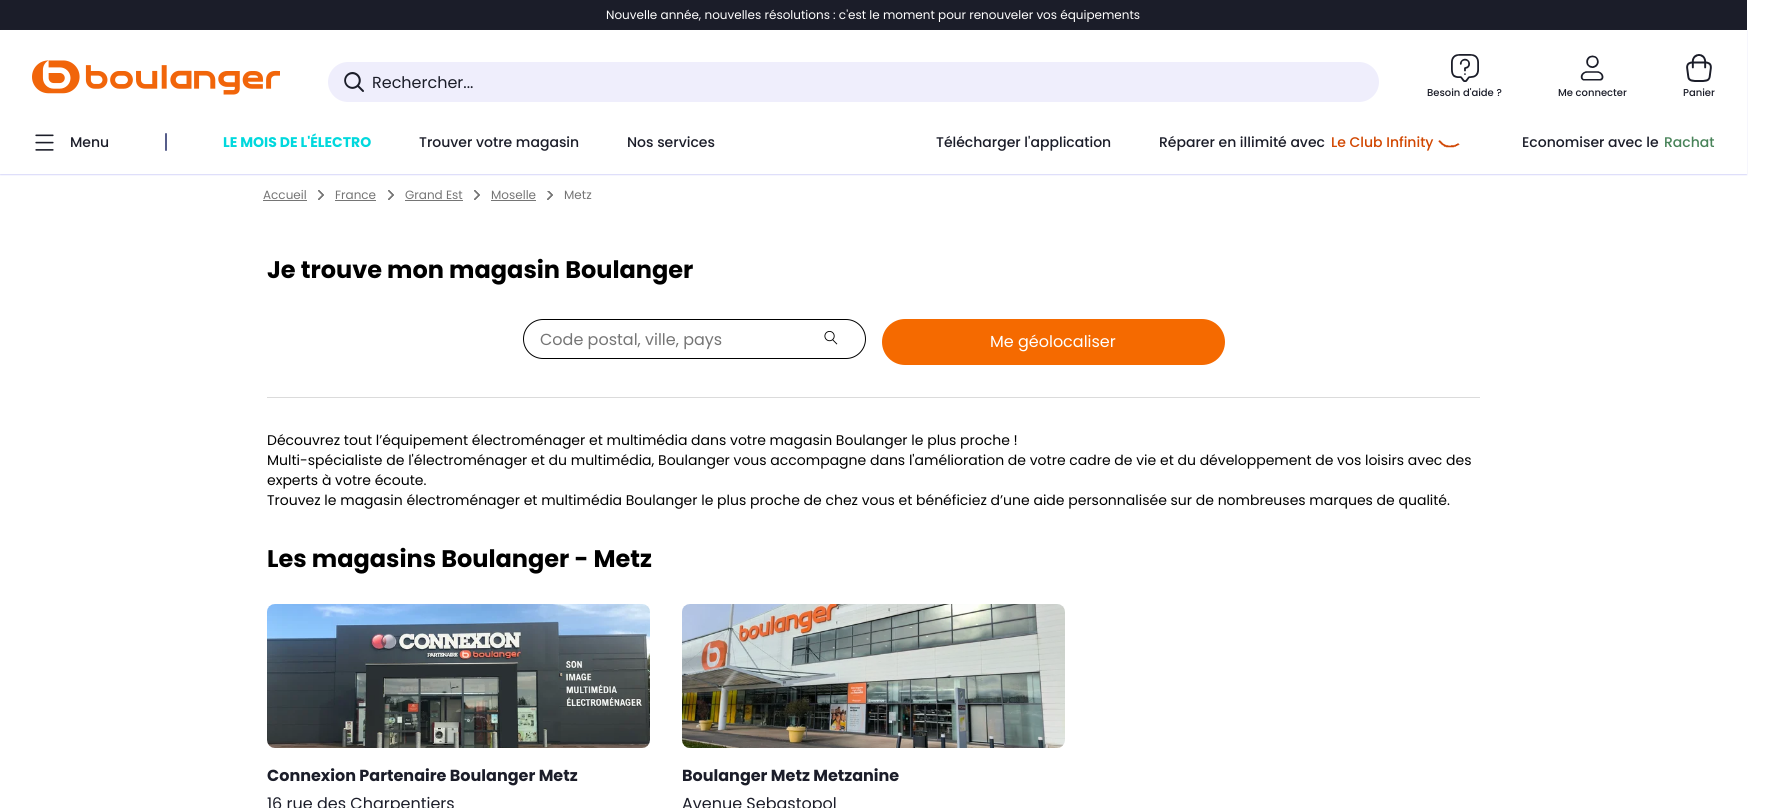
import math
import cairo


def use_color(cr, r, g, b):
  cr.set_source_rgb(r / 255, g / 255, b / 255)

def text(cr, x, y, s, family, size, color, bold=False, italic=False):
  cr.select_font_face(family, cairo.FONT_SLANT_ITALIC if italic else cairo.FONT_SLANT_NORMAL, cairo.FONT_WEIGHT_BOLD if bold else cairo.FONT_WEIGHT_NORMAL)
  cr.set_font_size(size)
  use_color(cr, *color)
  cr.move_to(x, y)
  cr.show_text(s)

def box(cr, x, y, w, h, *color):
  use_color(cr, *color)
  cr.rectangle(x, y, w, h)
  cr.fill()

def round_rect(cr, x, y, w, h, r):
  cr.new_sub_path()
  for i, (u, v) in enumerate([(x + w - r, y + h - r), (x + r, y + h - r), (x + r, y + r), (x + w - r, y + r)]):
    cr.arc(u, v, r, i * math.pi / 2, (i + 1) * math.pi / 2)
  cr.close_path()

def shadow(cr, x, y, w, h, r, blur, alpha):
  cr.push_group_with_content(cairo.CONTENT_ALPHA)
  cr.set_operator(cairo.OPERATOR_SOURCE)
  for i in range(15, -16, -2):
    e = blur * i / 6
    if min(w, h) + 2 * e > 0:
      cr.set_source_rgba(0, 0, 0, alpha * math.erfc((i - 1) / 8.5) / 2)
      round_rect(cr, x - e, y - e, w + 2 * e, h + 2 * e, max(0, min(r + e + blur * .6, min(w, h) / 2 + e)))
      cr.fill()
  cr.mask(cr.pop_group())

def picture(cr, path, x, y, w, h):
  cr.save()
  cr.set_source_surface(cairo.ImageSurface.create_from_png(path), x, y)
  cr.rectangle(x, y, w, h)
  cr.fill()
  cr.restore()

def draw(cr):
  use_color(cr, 255, 255, 255)
  cr.paint()
  box(cr, 0, 0, 1747, 30, 27, 29, 41)
  cr.save()
  cr.set_fill_rule(cairo.FILL_RULE_EVEN_ODD)
  cr.new_path()
  cr.move_to(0, 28)
  cr.line_to(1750, 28)
  cr.line_to(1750, 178)
  cr.line_to(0, 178)
  cr.close_path()
  cr.move_to(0, 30)
  cr.line_to(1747, 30)
  cr.line_to(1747, 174)
  cr.line_to(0, 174)
  cr.close_path()
  cr.clip()
  use_color(cr, 219, 219, 249)
  shadow(cr, 0, 31, 1747, 144, 0, 0.5, 1)
  cr.restore()
  picture(cr, "img_01.png", 32, 60, 248, 35)
  use_color(cr, 239, 238, 252)
  cr.new_path()
  cr.move_to(348, 62)
  cr.line_to(372, 62)
  cr.line_to(372, 102)
  cr.line_to(348, 102)
  cr.curve_to(337, 102, 328, 93, 328, 82)
  cr.curve_to(328, 71, 337, 62, 348, 62)
  cr.close_path()
  cr.fill()
  picture(cr, "img_02.png", 344, 72, 20, 20)
  cr.new_path()
  cr.move_to(372, 62)
  cr.line_to(1359, 62)
  cr.curve_to(1370, 62, 1379, 71, 1379, 82)
  cr.curve_to(1379, 93, 1370, 102, 1359, 102)
  cr.line_to(372, 102)
  cr.close_path()
  cr.fill()
  picture(cr, "img_03.png", 1451, 54, 28, 28)
  picture(cr, "img_04.png", 1580, 55, 24, 26)
  picture(cr, "img_05.png", 1686, 54, 26, 28)
  picture(cr, "img_06.png", 35, 134, 19, 17)
  use_color(cr, 86, 93, 138)
  round_rect(cr, 165, 133, 2, 18, 1)
  cr.fill()
  picture(cr, "img_07.png", 1438, 140, 22, 8)
  box(cr, 263, 200, 44, 1, 117, 117, 117)
  picture(cr, "img_08.png", 318, 190, 6, 10)
  box(cr, 335, 200, 41, 1, 117, 117, 117)
  picture(cr, "img_08.png", 388, 190, 6, 10)
  box(cr, 405, 200, 58, 1, 117, 117, 117)
  picture(cr, "img_08.png", 474, 190, 6, 10)
  box(cr, 491, 200, 45, 1, 117, 117, 117)
  picture(cr, "img_09.png", 547, 191, 6, 9)
  round_rect(cr, 523.5, 319.5, 342, 39, 19.5)
  use_color(cr, 0, 0, 0)
  cr.set_line_width(1)
  cr.stroke()
  picture(cr, "img_10.png", 824, 331, 14, 14)
  use_color(cr, 245, 106, 0)
  round_rect(cr, 882, 319, 343, 46, 23)
  cr.fill()
  box(cr, 267, 397, 1213, 1, 219, 219, 219)
  picture(cr, "img_11.png", 267, 604, 383, 144)
  picture(cr, "img_12.png", 682, 604, 383, 144)
  cr.save()
  cr.rectangle(606, 8, 535, 14)
  cr.clip()
  text(cr, 606, 19, "Nouvelle année, nouvelles résolutions : c'est le moment pour renouveler vos équipements", "Poppins", 12, (255, 255, 255))
  cr.restore()
  text(cr, 372, 88, "Rechercher...", "Poppins", 16, (27, 29, 41))
  text(cr, 1427, 96, "Besoin d'aide ?", "Poppins Medium", 10, (27, 29, 41))
  text(cr, 1558, 96, "Me connecter", "Poppins Medium", 10, (27, 29, 41))
  text(cr, 1683, 96, "Panier", "Poppins Medium", 10, (27, 29, 41))
  text(cr, 70, 147, "Menu", "Poppins Medium", 14, (27, 29, 41))
  text(cr, 223, 147, "LE MOIS DE L'ÉLECTRO", "Poppins", 14, (1, 216, 221), bold=True)
  text(cr, 419, 147, "Trouver votre magasin", "Poppins Medium", 14, (27, 29, 41))
  text(cr, 627, 147, "Nos services", "Poppins Medium", 14, (27, 29, 41))
  text(cr, 936, 147, "Télécharger l'application", "Poppins Medium", 14, (27, 29, 41))
  text(cr, 1159, 147, "Réparer en illimité avec", "Poppins Medium", 14, (27, 29, 41))
  text(cr, 1331, 147, "Le Club Infinity", "Poppins Medium", 14, (209, 70, 0))
  text(cr, 1522, 147, "Economiser avec le", "Poppins Medium", 14, (27, 29, 41))
  text(cr, 1664, 147, "Rachat", "Poppins Medium", 14, (72, 131, 89))
  text(cr, 263, 199, "Accueil", "Poppins", 12, (117, 117, 117))
  text(cr, 335, 199, "France", "Poppins", 12, (117, 117, 117))
  text(cr, 405, 199, "Grand Est", "Poppins", 12, (117, 117, 117))
  text(cr, 491, 199, "Moselle", "Poppins", 12, (117, 117, 117))
  text(cr, 564, 199, "Metz", "Poppins", 12, (117, 117, 117))
  text(cr, 267, 278, "Je trouve mon magasin Boulanger", "Poppins", 24, (0, 0, 0), bold=True)
  text(cr, 540, 345, "Code postal, ville, pays", "Poppins", 16, (117, 117, 117))
  text(cr, 990, 347, "Me géolocaliser", "Poppins", 16, (255, 255, 255))
  text(cr, 267, 445, "Découvrez tout l’équipement électroménager et multimédia dans votre magasin Boulanger le plus proche !", "Poppins", 14, (0, 0, 0))
  text(cr, 267, 465, "Multi-spécialiste de l'électroménager et du multimédia, Boulanger vous accompagne dans l'amélioration de votre cadre de vie et du développement de vos loisirs avec des", "Poppins", 14, (0, 0, 0))
  text(cr, 267, 485, "experts à votre écoute.", "Poppins", 14, (0, 0, 0))
  text(cr, 267, 505, "Trouvez le magasin électroménager et multimédia Boulanger le plus proche de chez vous et bénéficiez d’une aide personnalisée sur de nombreuses marques de qualité.", "Poppins", 14, (0, 0, 0))
  text(cr, 267, 567, "Les magasins Boulanger - Metz", "Poppins", 24, (0, 0, 0), bold=True)
  text(cr, 267, 781, "Connexion Partenaire Boulanger Metz", "Poppins", 16, (27, 29, 41), bold=True)
  text(cr, 267, 809, "16 rue des Charpentiers", "Poppins", 16, (27, 29, 41))
  text(cr, 682, 781, "Boulanger Metz Metzanine", "Poppins", 16, (27, 29, 41), bold=True)
  text(cr, 682, 809, "Avenue Sebastopol", "Poppins", 16, (27, 29, 41))


surface = cairo.ImageSurface(cairo.FORMAT_RGB24, 1765, 808)
cr = cairo.Context(surface)
options = cairo.FontOptions()
options.set_hint_metrics(cairo.HINT_METRICS_OFF)
options.set_hint_style(cairo.HINT_STYLE_NONE)
cr.set_font_options(options)
cr.set_miter_limit(4)
draw(cr)
surface.write_to_png("out.png")
